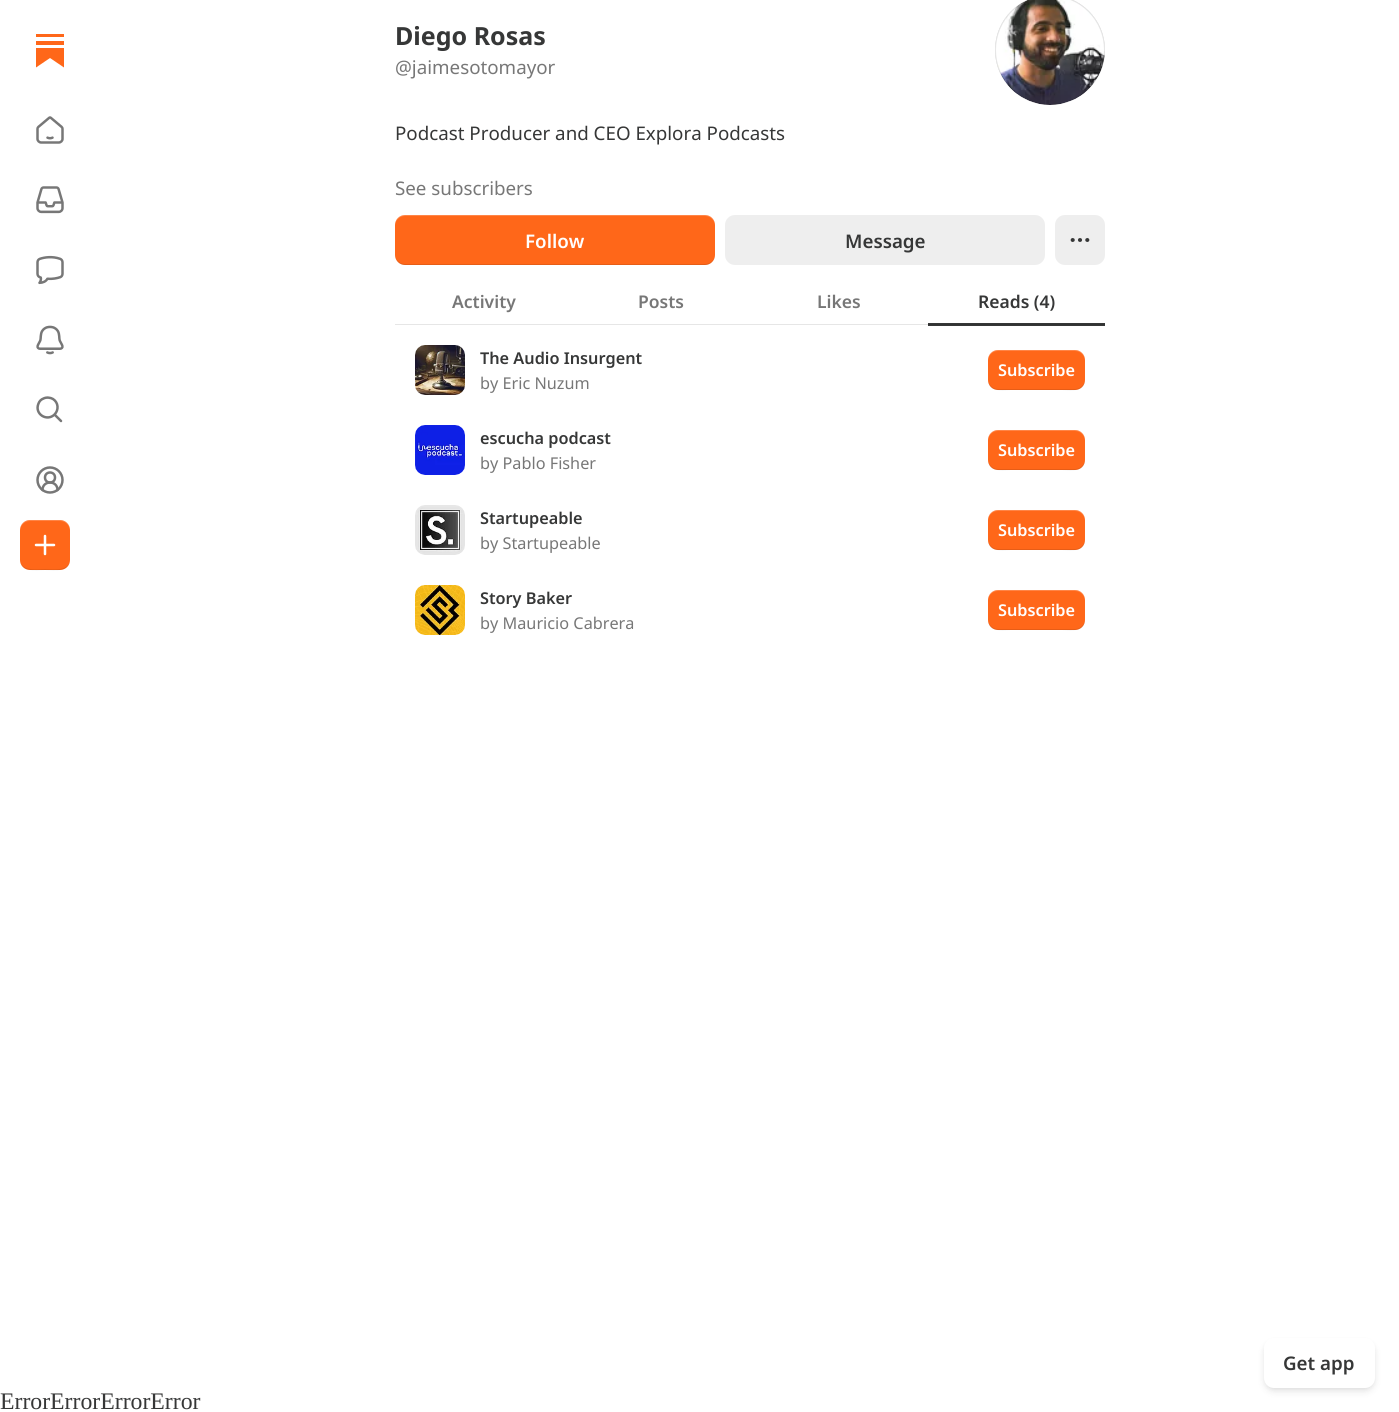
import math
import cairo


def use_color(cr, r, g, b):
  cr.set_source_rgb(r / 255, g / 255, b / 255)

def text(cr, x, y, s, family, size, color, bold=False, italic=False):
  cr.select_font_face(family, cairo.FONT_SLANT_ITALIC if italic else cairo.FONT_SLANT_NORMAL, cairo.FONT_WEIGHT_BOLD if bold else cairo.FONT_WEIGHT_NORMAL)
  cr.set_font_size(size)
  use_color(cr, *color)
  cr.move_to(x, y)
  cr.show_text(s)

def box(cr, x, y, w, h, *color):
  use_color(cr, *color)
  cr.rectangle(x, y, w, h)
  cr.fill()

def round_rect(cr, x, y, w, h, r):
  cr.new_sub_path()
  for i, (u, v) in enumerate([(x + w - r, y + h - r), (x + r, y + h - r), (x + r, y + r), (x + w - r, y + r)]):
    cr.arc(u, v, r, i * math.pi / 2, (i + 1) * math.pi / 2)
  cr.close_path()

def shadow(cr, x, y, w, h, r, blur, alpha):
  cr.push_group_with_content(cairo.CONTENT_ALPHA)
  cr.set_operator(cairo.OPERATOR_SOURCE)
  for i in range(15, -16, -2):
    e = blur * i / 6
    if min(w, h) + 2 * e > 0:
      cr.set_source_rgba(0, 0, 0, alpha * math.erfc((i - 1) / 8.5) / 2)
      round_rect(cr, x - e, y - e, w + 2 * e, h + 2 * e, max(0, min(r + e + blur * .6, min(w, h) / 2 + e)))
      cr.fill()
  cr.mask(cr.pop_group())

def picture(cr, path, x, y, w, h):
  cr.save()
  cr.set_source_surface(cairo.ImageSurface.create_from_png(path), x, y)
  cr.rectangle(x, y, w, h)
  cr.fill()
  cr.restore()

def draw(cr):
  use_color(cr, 255, 255, 255)
  cr.paint()
  box(cr, 395, 324, 533, 1, 230, 230, 230)
  box(cr, 36, 34, 28, 3, 255, 103, 25)
  box(cr, 36, 41, 28, 4, 255, 103, 25)
  cr.new_path()
  cr.move_to(36, 48)
  cr.line_to(36, 67.5)
  cr.line_to(50, 58)
  cr.line_to(64, 67.5)
  cr.line_to(64, 48)
  cr.close_path()
  cr.fill()
  picture(cr, "img_01.png", 36, 116, 28, 28)
  picture(cr, "img_02.png", 36, 186, 28, 28)
  picture(cr, "img_03.png", 36, 255, 28, 30)
  picture(cr, "img_04.png", 36, 325, 28, 30)
  cr.new_path()
  cr.move_to(61, 421)
  cr.line_to(54.5, 414.5)
  cr.move_to(54.5, 414.5)
  cr.curve_to(59, 410, 58.5, 402.5, 53, 399)
  cr.curve_to(50.5, 397.5, 46.5, 397, 43.5, 398.5)
  cr.curve_to(41, 399.5, 39.5, 401, 38.5, 403.5)
  cr.curve_to(34, 414, 47, 422, 54.5, 414.5)
  cr.close_path()
  use_color(cr, 119, 119, 119)
  cr.set_line_width(2.5)
  cr.set_line_cap(cairo.LINE_CAP_ROUND)
  cr.set_line_join(cairo.LINE_JOIN_ROUND)
  cr.stroke()
  cr.new_path()
  cr.move_to(57.5, 490)
  cr.curve_to(57.5, 480, 42.5, 480, 42.5, 490)
  cr.stroke()
  cr.arc(50, 477.5, 5, 0, 2 * math.pi)
  cr.set_line_cap(cairo.LINE_CAP_BUTT)
  cr.set_line_join(cairo.LINE_JOIN_MITER)
  cr.stroke()
  cr.arc(50, 480, 12.5, 0, 2 * math.pi)
  cr.stroke()
  use_color(cr, 255, 103, 25)
  round_rect(cr, 20, 520, 50, 50, 10)
  cr.fill()
  cr.set_source_rgba(0, 0, 0, 0.1)
  cr.new_path()
  cr.move_to(20, 559)
  cr.curve_to(20, 573, 35, 570, 45, 570)
  cr.curve_to(55, 570, 70, 573, 70, 559)
  cr.curve_to(70, 572, 53, 569, 45, 569)
  cr.curve_to(37, 569, 20, 572, 20, 559)
  cr.close_path()
  cr.fill()
  cr.set_source_rgba(1, 1, 1, 0.2)
  cr.new_path()
  cr.move_to(30, 521)
  cr.line_to(60, 521)
  cr.curve_to(66, 521, 70, 526, 70, 531)
  cr.curve_to(70, 517, 55, 520, 45, 520)
  cr.curve_to(35, 520, 20, 517, 20, 531)
  cr.curve_to(20, 526, 24, 521, 30, 521)
  cr.close_path()
  cr.fill()
  cr.new_path()
  cr.move_to(36, 545)
  cr.line_to(54, 545)
  cr.move_to(45, 536)
  cr.line_to(45, 554)
  use_color(cr, 255, 255, 255)
  cr.set_line_cap(cairo.LINE_CAP_ROUND)
  cr.set_line_join(cairo.LINE_JOIN_ROUND)
  cr.stroke()
  cr.arc(1050, 50, 54.5, 0, 2 * math.pi)
  cr.set_source_rgba(0, 0, 0, 0.1)
  cr.set_line_width(1)
  cr.set_line_cap(cairo.LINE_CAP_BUTT)
  cr.set_line_join(cairo.LINE_JOIN_MITER)
  cr.stroke()
  use_color(cr, 238, 238, 238)
  cr.arc(1050, 50, 55, 0, 2 * math.pi)
  cr.fill()
  picture(cr, "img_05.png", 995, 0, 110, 105)
  cr.arc(1050, 50, 54.5, 0, 2 * math.pi)
  cr.set_source_rgba(0, 0, 0, 0.1)
  cr.stroke()
  use_color(cr, 255, 103, 25)
  round_rect(cr, 395, 215, 320, 50, 10)
  cr.fill()
  cr.set_source_rgba(0, 0, 0, 0.1)
  cr.new_path()
  cr.move_to(395, 254)
  cr.curve_to(395, 259, 398, 264, 403, 265)
  cr.line_to(707, 265)
  cr.curve_to(712, 264, 715, 259, 715, 254)
  cr.curve_to(715, 259, 711, 264, 705, 264)
  cr.line_to(405, 264)
  cr.curve_to(399, 264, 395, 259, 395, 254)
  cr.close_path()
  cr.fill()
  cr.set_source_rgba(1, 1, 1, 0.2)
  cr.new_path()
  cr.move_to(405, 216)
  cr.line_to(705, 216)
  cr.curve_to(711, 216, 715, 221, 715, 226)
  cr.curve_to(715, 221, 712, 216, 707, 215)
  cr.line_to(403, 215)
  cr.curve_to(398, 216, 395, 221, 395, 226)
  cr.curve_to(395, 221, 399, 216, 405, 216)
  cr.close_path()
  cr.fill()
  use_color(cr, 238, 238, 238)
  round_rect(cr, 725, 215, 320, 50, 10)
  cr.fill()
  round_rect(cr, 1055, 215, 50, 50, 10)
  cr.fill()
  cr.arc(1080, 240, 1, 0, 2 * math.pi)
  use_color(cr, 54, 55, 55)
  cr.set_line_width(2.1)
  cr.stroke()
  cr.arc(1087.3, 240, 1, 0, 2 * math.pi)
  cr.stroke()
  cr.arc(1072.7, 240, 1, 0, 2 * math.pi)
  cr.stroke()
  box(cr, 928, 323, 177, 3, 54, 55, 55)
  box(cr, 928, 324, 177, 1, 49, 50, 50)
  picture(cr, "img_06.png", 415, 345, 50, 50)
  use_color(cr, 255, 103, 25)
  round_rect(cr, 988, 350, 97, 40, 10)
  cr.fill()
  cr.set_source_rgba(0, 0, 0, 0.1)
  cr.new_path()
  cr.move_to(988, 379)
  cr.curve_to(988, 393, 1001, 390, 1011, 390)
  cr.line_to(1062, 390)
  cr.curve_to(1072, 390, 1085, 393, 1085, 379)
  cr.curve_to(1085, 384, 1081, 389, 1075, 389)
  cr.line_to(998, 389)
  cr.curve_to(992, 389, 988, 384, 988, 379)
  cr.close_path()
  cr.fill()
  cr.set_source_rgba(1, 1, 1, 0.2)
  cr.new_path()
  cr.move_to(998, 351)
  cr.line_to(1075, 351)
  cr.curve_to(1081, 351, 1085, 356, 1085, 361)
  cr.curve_to(1085, 347, 1072, 350, 1062, 350)
  cr.line_to(1011, 350)
  cr.curve_to(1001, 350, 988, 347, 988, 361)
  cr.curve_to(988, 356, 992, 351, 998, 351)
  cr.close_path()
  cr.fill()
  picture(cr, "img_07.png", 415, 425, 50, 50)
  use_color(cr, 255, 103, 25)
  round_rect(cr, 988, 430, 97, 40, 10)
  cr.fill()
  cr.set_source_rgba(0, 0, 0, 0.1)
  cr.new_path()
  cr.move_to(988, 459)
  cr.curve_to(988, 473, 1001, 470, 1011, 470)
  cr.line_to(1062, 470)
  cr.curve_to(1072, 470, 1085, 473, 1085, 459)
  cr.curve_to(1085, 464, 1081, 469, 1075, 469)
  cr.line_to(998, 469)
  cr.curve_to(992, 469, 988, 464, 988, 459)
  cr.close_path()
  cr.fill()
  cr.set_source_rgba(1, 1, 1, 0.2)
  cr.new_path()
  cr.move_to(998, 431)
  cr.line_to(1075, 431)
  cr.curve_to(1081, 431, 1085, 436, 1085, 441)
  cr.curve_to(1085, 427, 1072, 430, 1062, 430)
  cr.line_to(1011, 430)
  cr.curve_to(1001, 430, 988, 427, 988, 441)
  cr.curve_to(988, 436, 992, 431, 998, 431)
  cr.close_path()
  cr.fill()
  picture(cr, "img_08.png", 415, 505, 50, 50)
  use_color(cr, 255, 103, 25)
  round_rect(cr, 988, 510, 97, 40, 10)
  cr.fill()
  cr.set_source_rgba(0, 0, 0, 0.1)
  cr.new_path()
  cr.move_to(988, 539)
  cr.curve_to(988, 553, 1001, 550, 1011, 550)
  cr.line_to(1062, 550)
  cr.curve_to(1072, 550, 1085, 553, 1085, 539)
  cr.curve_to(1085, 544, 1081, 549, 1075, 549)
  cr.line_to(998, 549)
  cr.curve_to(992, 549, 988, 544, 988, 539)
  cr.close_path()
  cr.fill()
  cr.set_source_rgba(1, 1, 1, 0.2)
  cr.new_path()
  cr.move_to(998, 511)
  cr.line_to(1075, 511)
  cr.curve_to(1081, 511, 1085, 516, 1085, 521)
  cr.curve_to(1085, 507, 1072, 510, 1062, 510)
  cr.line_to(1011, 510)
  cr.curve_to(1001, 510, 988, 507, 988, 521)
  cr.curve_to(988, 516, 992, 511, 998, 511)
  cr.close_path()
  cr.fill()
  picture(cr, "img_09.png", 415, 585, 50, 50)
  use_color(cr, 255, 103, 25)
  round_rect(cr, 988, 590, 97, 40, 10)
  cr.fill()
  cr.set_source_rgba(0, 0, 0, 0.1)
  cr.new_path()
  cr.move_to(988, 619)
  cr.curve_to(988, 633, 1001, 630, 1011, 630)
  cr.line_to(1062, 630)
  cr.curve_to(1072, 630, 1085, 633, 1085, 619)
  cr.curve_to(1085, 624, 1081, 629, 1075, 629)
  cr.line_to(998, 629)
  cr.curve_to(992, 629, 988, 624, 988, 619)
  cr.close_path()
  cr.fill()
  cr.set_source_rgba(1, 1, 1, 0.2)
  cr.new_path()
  cr.move_to(998, 591)
  cr.line_to(1075, 591)
  cr.curve_to(1081, 591, 1085, 596, 1085, 601)
  cr.curve_to(1085, 587, 1072, 590, 1062, 590)
  cr.line_to(1011, 590)
  cr.curve_to(1001, 590, 988, 587, 988, 601)
  cr.curve_to(988, 596, 992, 591, 998, 591)
  cr.close_path()
  cr.fill()
  use_color(cr, 0, 0, 0)
  shadow(cr, 1265, 1341, 109, 48, 9, 2.5, 0.06)
  shadow(cr, 1265, 1344, 109, 47, 9, 4, 0.1)
  use_color(cr, 255, 255, 255)
  round_rect(cr, 1264, 1338, 111, 50, 10)
  cr.fill()
  text(cr, 395, 45, "Diego Rosas", "Noto Sans", 25, (54, 55, 55), bold=True)
  text(cr, 395, 74, "@jaimesotomayor", "Noto Sans", 18.75, (119, 119, 119))
  text(cr, 395, 140, "Podcast Producer and CEO Explora Podcasts", "Noto Sans", 18.75, (54, 55, 55))
  text(cr, 395, 195, "See subscribers", "Noto Sans", 18.75, (119, 119, 119))
  text(cr, 525, 248, "Follow", "Noto Sans SemiBold", 18.75, (255, 255, 255))
  text(cr, 845, 248, "Message", "Noto Sans SemiBold", 18.75, (54, 55, 55))
  text(cr, 452, 308, "Activity", "Noto Sans SemiBold", 17.5, (119, 119, 119))
  text(cr, 638, 308, "Posts", "Noto Sans SemiBold", 17.5, (119, 119, 119))
  text(cr, 817, 308, "Likes", "Noto Sans SemiBold", 17.5, (119, 119, 119))
  text(cr, 978, 308, "Reads (4)", "Noto Sans SemiBold", 17.5, (54, 55, 55))
  text(cr, 480, 364, "The Audio Insurgent", "Noto Sans SemiBold", 16.25, (54, 55, 55))
  text(cr, 480, 389, "by Eric Nuzum", "Noto Sans", 16.25, (119, 119, 119))
  text(cr, 998, 376, "Subscribe", "Noto Sans SemiBold", 16.25, (255, 255, 255))
  text(cr, 480, 444, "escucha podcast", "Noto Sans SemiBold", 16.25, (54, 55, 55))
  text(cr, 480, 469, "by Pablo Fisher", "Noto Sans", 16.25, (119, 119, 119))
  text(cr, 998, 456, "Subscribe", "Noto Sans SemiBold", 16.25, (255, 255, 255))
  text(cr, 480, 524, "Startupeable", "Noto Sans SemiBold", 16.25, (54, 55, 55))
  text(cr, 480, 549, "by Startupeable", "Noto Sans", 16.25, (119, 119, 119))
  text(cr, 998, 536, "Subscribe", "Noto Sans SemiBold", 16.25, (255, 255, 255))
  text(cr, 480, 604, "Story Baker", "Noto Sans SemiBold", 16.25, (54, 55, 55))
  text(cr, 480, 629, "by Mauricio Cabrera", "Noto Sans", 16.25, (119, 119, 119))
  text(cr, 998, 616, "Subscribe", "Noto Sans SemiBold", 16.25, (255, 255, 255))
  text(cr, 1283, 1370, "Get app", "Noto Sans SemiBold", 18.75, (54, 55, 55))
  text(cr, 0, 1409, "ErrorErrorErrorError", "Liberation Serif", 23.75, (54, 55, 55))


surface = cairo.ImageSurface(cairo.FORMAT_RGB24, 1399, 1412)
cr = cairo.Context(surface)
options = cairo.FontOptions()
options.set_hint_metrics(cairo.HINT_METRICS_OFF)
options.set_hint_style(cairo.HINT_STYLE_NONE)
cr.set_font_options(options)
cr.set_miter_limit(4)
draw(cr)
surface.write_to_png("out.png")
